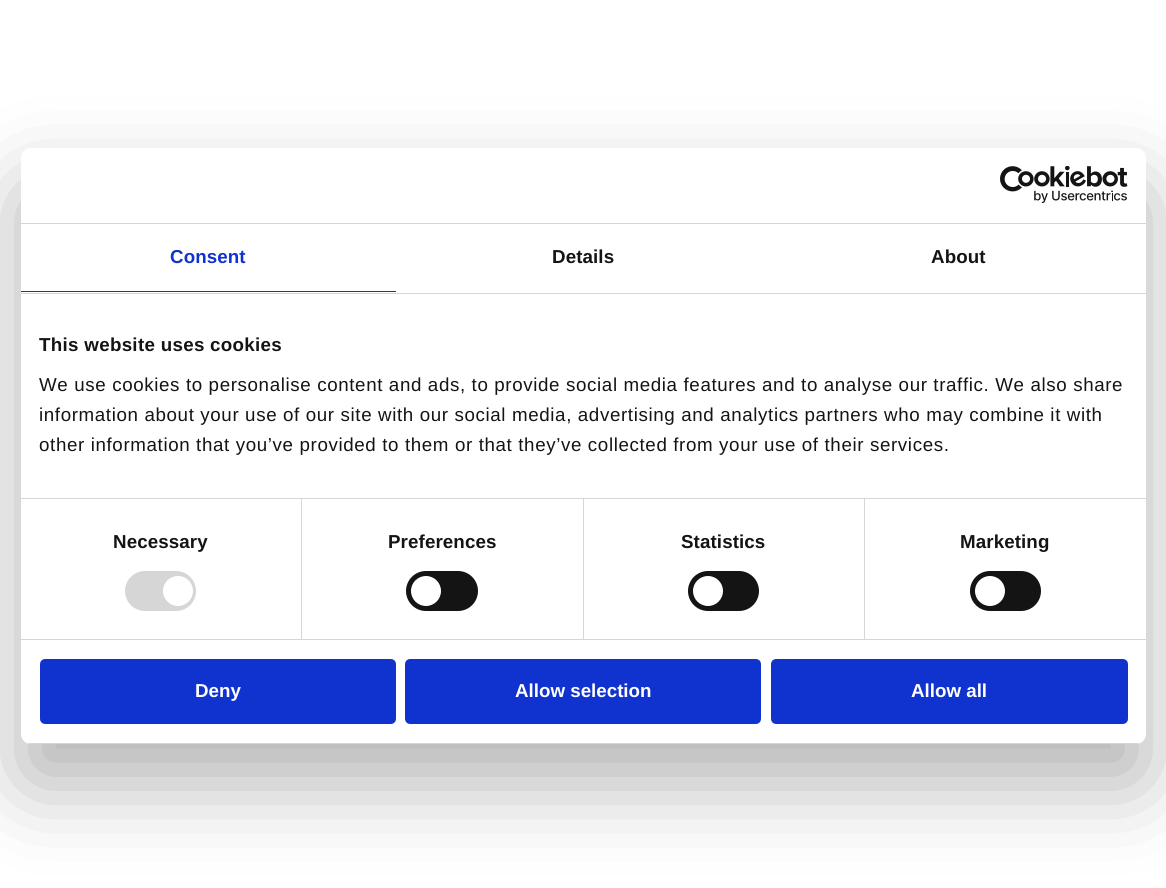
import math
import cairo


def use_color(cr, r, g, b):
  cr.set_source_rgb(r / 255, g / 255, b / 255)

def text(cr, x, y, s, family, size, color, bold=False, italic=False):
  cr.select_font_face(family, cairo.FONT_SLANT_ITALIC if italic else cairo.FONT_SLANT_NORMAL, cairo.FONT_WEIGHT_BOLD if bold else cairo.FONT_WEIGHT_NORMAL)
  cr.set_font_size(size)
  use_color(cr, *color)
  cr.move_to(x, y)
  cr.show_text(s)

def spaced_text(cr, x, y, s, letter, word):
  cr.move_to(x, y)
  for ch in s:
    cr.show_text(ch)
    cr.rel_move_to(letter + word * (ch == ' '), 0)

def box(cr, x, y, w, h, *color):
  use_color(cr, *color)
  cr.rectangle(x, y, w, h)
  cr.fill()

def round_rect(cr, x, y, w, h, r):
  cr.new_sub_path()
  for i, (u, v) in enumerate([(x + w - r, y + h - r), (x + r, y + h - r), (x + r, y + r), (x + w - r, y + r)]):
    cr.arc(u, v, r, i * math.pi / 2, (i + 1) * math.pi / 2)
  cr.close_path()

def shadow(cr, x, y, w, h, r, blur, alpha):
  cr.push_group_with_content(cairo.CONTENT_ALPHA)
  cr.set_operator(cairo.OPERATOR_SOURCE)
  for i in range(15, -16, -2):
    e = blur * i / 6
    if min(w, h) + 2 * e > 0:
      cr.set_source_rgba(0, 0, 0, alpha * math.erfc((i - 1) / 8.5) / 2)
      round_rect(cr, x - e, y - e, w + 2 * e, h + 2 * e, max(0, min(r + e + blur * .6, min(w, h) / 2 + e)))
      cr.fill()
  cr.mask(cr.pop_group())

def picture(cr, path, x, y, w, h):
  cr.save()
  cr.set_source_surface(cairo.ImageSurface.create_from_png(path), x, y)
  cr.rectangle(x, y, w, h)
  cr.fill()
  cr.restore()

def draw(cr):
  use_color(cr, 255, 255, 255)
  cr.paint()
  use_color(cr, 0, 0, 0)
  shadow(cr, 21, 188, 1125, 596, 10, 42.5, 0.3)
  use_color(cr, 255, 255, 255)
  round_rect(cr, 21, 148, 1125, 596, 10)
  cr.fill()
  box(cr, 21, 223, 1125, 1, 214, 214, 214)
  picture(cr, "img_01.png", 1000, 166, 128, 37)
  box(cr, 21, 293, 1125, 1, 214, 214, 214)
  box(cr, 21, 291, 375, 1, 16, 50, 207)
  box(cr, 21, 498, 1125, 1, 214, 214, 214)
  box(cr, 21, 639, 1125, 1, 214, 214, 214)
  box(cr, 301, 499, 1, 140, 214, 214, 214)
  round_rect(cr, 125, 571, 71, 40, 20)
  cr.fill()
  use_color(cr, 255, 255, 255)
  cr.arc(178, 591, 15, 0, 2 * math.pi)
  cr.fill()
  box(cr, 583, 499, 1, 140, 214, 214, 214)
  use_color(cr, 20, 20, 20)
  round_rect(cr, 406, 571, 72, 40, 20)
  cr.fill()
  use_color(cr, 255, 255, 255)
  cr.arc(426, 591, 15, 0, 2 * math.pi)
  cr.fill()
  box(cr, 864, 499, 1, 140, 214, 214, 214)
  use_color(cr, 20, 20, 20)
  round_rect(cr, 688, 571, 71, 40, 20)
  cr.fill()
  use_color(cr, 255, 255, 255)
  cr.arc(708, 591, 15, 0, 2 * math.pi)
  cr.fill()
  use_color(cr, 20, 20, 20)
  round_rect(cr, 970, 571, 71, 40, 20)
  cr.fill()
  use_color(cr, 255, 255, 255)
  cr.arc(990, 591, 15, 0, 2 * math.pi)
  cr.fill()
  cr.save()
  round_rect(cr, 21, 148, 1125, 596, 10)
  cr.clip()
  box(cr, 21, 743, 1125, 1, 214, 214, 214)
  cr.restore()
  use_color(cr, 16, 50, 207)
  round_rect(cr, 41.5, 660.5, 353, 62, 3.5)
  cr.fill_preserve()
  cr.set_line_width(3)
  cr.stroke()
  round_rect(cr, 406.5, 660.5, 353, 62, 3.5)
  cr.fill_preserve()
  cr.stroke()
  round_rect(cr, 772.5, 660.5, 354, 62, 3.5)
  cr.fill_preserve()
  cr.stroke()
  cr.select_font_face("Liberation Sans", cairo.FONT_SLANT_NORMAL, cairo.FONT_WEIGHT_BOLD)
  cr.set_font_size(18.75)
  spaced_text(cr, 170, 263, "Consent", 0.1, 0)
  use_color(cr, 20, 20, 20)
  spaced_text(cr, 552, 263, "Details", 0.1, 0)
  spaced_text(cr, 931, 263, "About", 0.1, 0)
  spaced_text(cr, 39, 351, "This website uses cookies", 0.3, 0)
  cr.select_font_face("Liberation Sans")
  spaced_text(cr, 39, 391, "We use cookies to personalise content and ads, to provide social media features and to analyse our traffic. We also share", 0.62, 0)
  spaced_text(cr, 39, 421, "information about your use of our site with our social media, advertising and analytics partners who may combine it with", 0.62, 0)
  spaced_text(cr, 39, 451, "other information that you’ve provided to them or that they’ve collected from your use of their services.", 0.62, 0)
  cr.select_font_face("Liberation Sans", cairo.FONT_SLANT_NORMAL, cairo.FONT_WEIGHT_BOLD)
  spaced_text(cr, 113, 548, "Necessary", 0.1, 0)
  spaced_text(cr, 388, 548, "Preferences", 0.1, 0)
  spaced_text(cr, 681, 548, "Statistics", 0.1, 0)
  spaced_text(cr, 960, 548, "Marketing", 0.1, 0)
  text(cr, 195, 697, "Deny", "Liberation Sans", 18.75, (255, 255, 255), bold=True)
  text(cr, 515, 697, "Allow selection", "Liberation Sans", 18.75, (255, 255, 255), bold=True)
  text(cr, 911, 697, "Allow all", "Liberation Sans", 18.75, (255, 255, 255), bold=True)


surface = cairo.ImageSurface(cairo.FORMAT_RGB24, 1166, 888)
cr = cairo.Context(surface)
options = cairo.FontOptions()
options.set_hint_metrics(cairo.HINT_METRICS_OFF)
options.set_hint_style(cairo.HINT_STYLE_NONE)
cr.set_font_options(options)
cr.set_miter_limit(4)
draw(cr)
surface.write_to_png("out.png")
